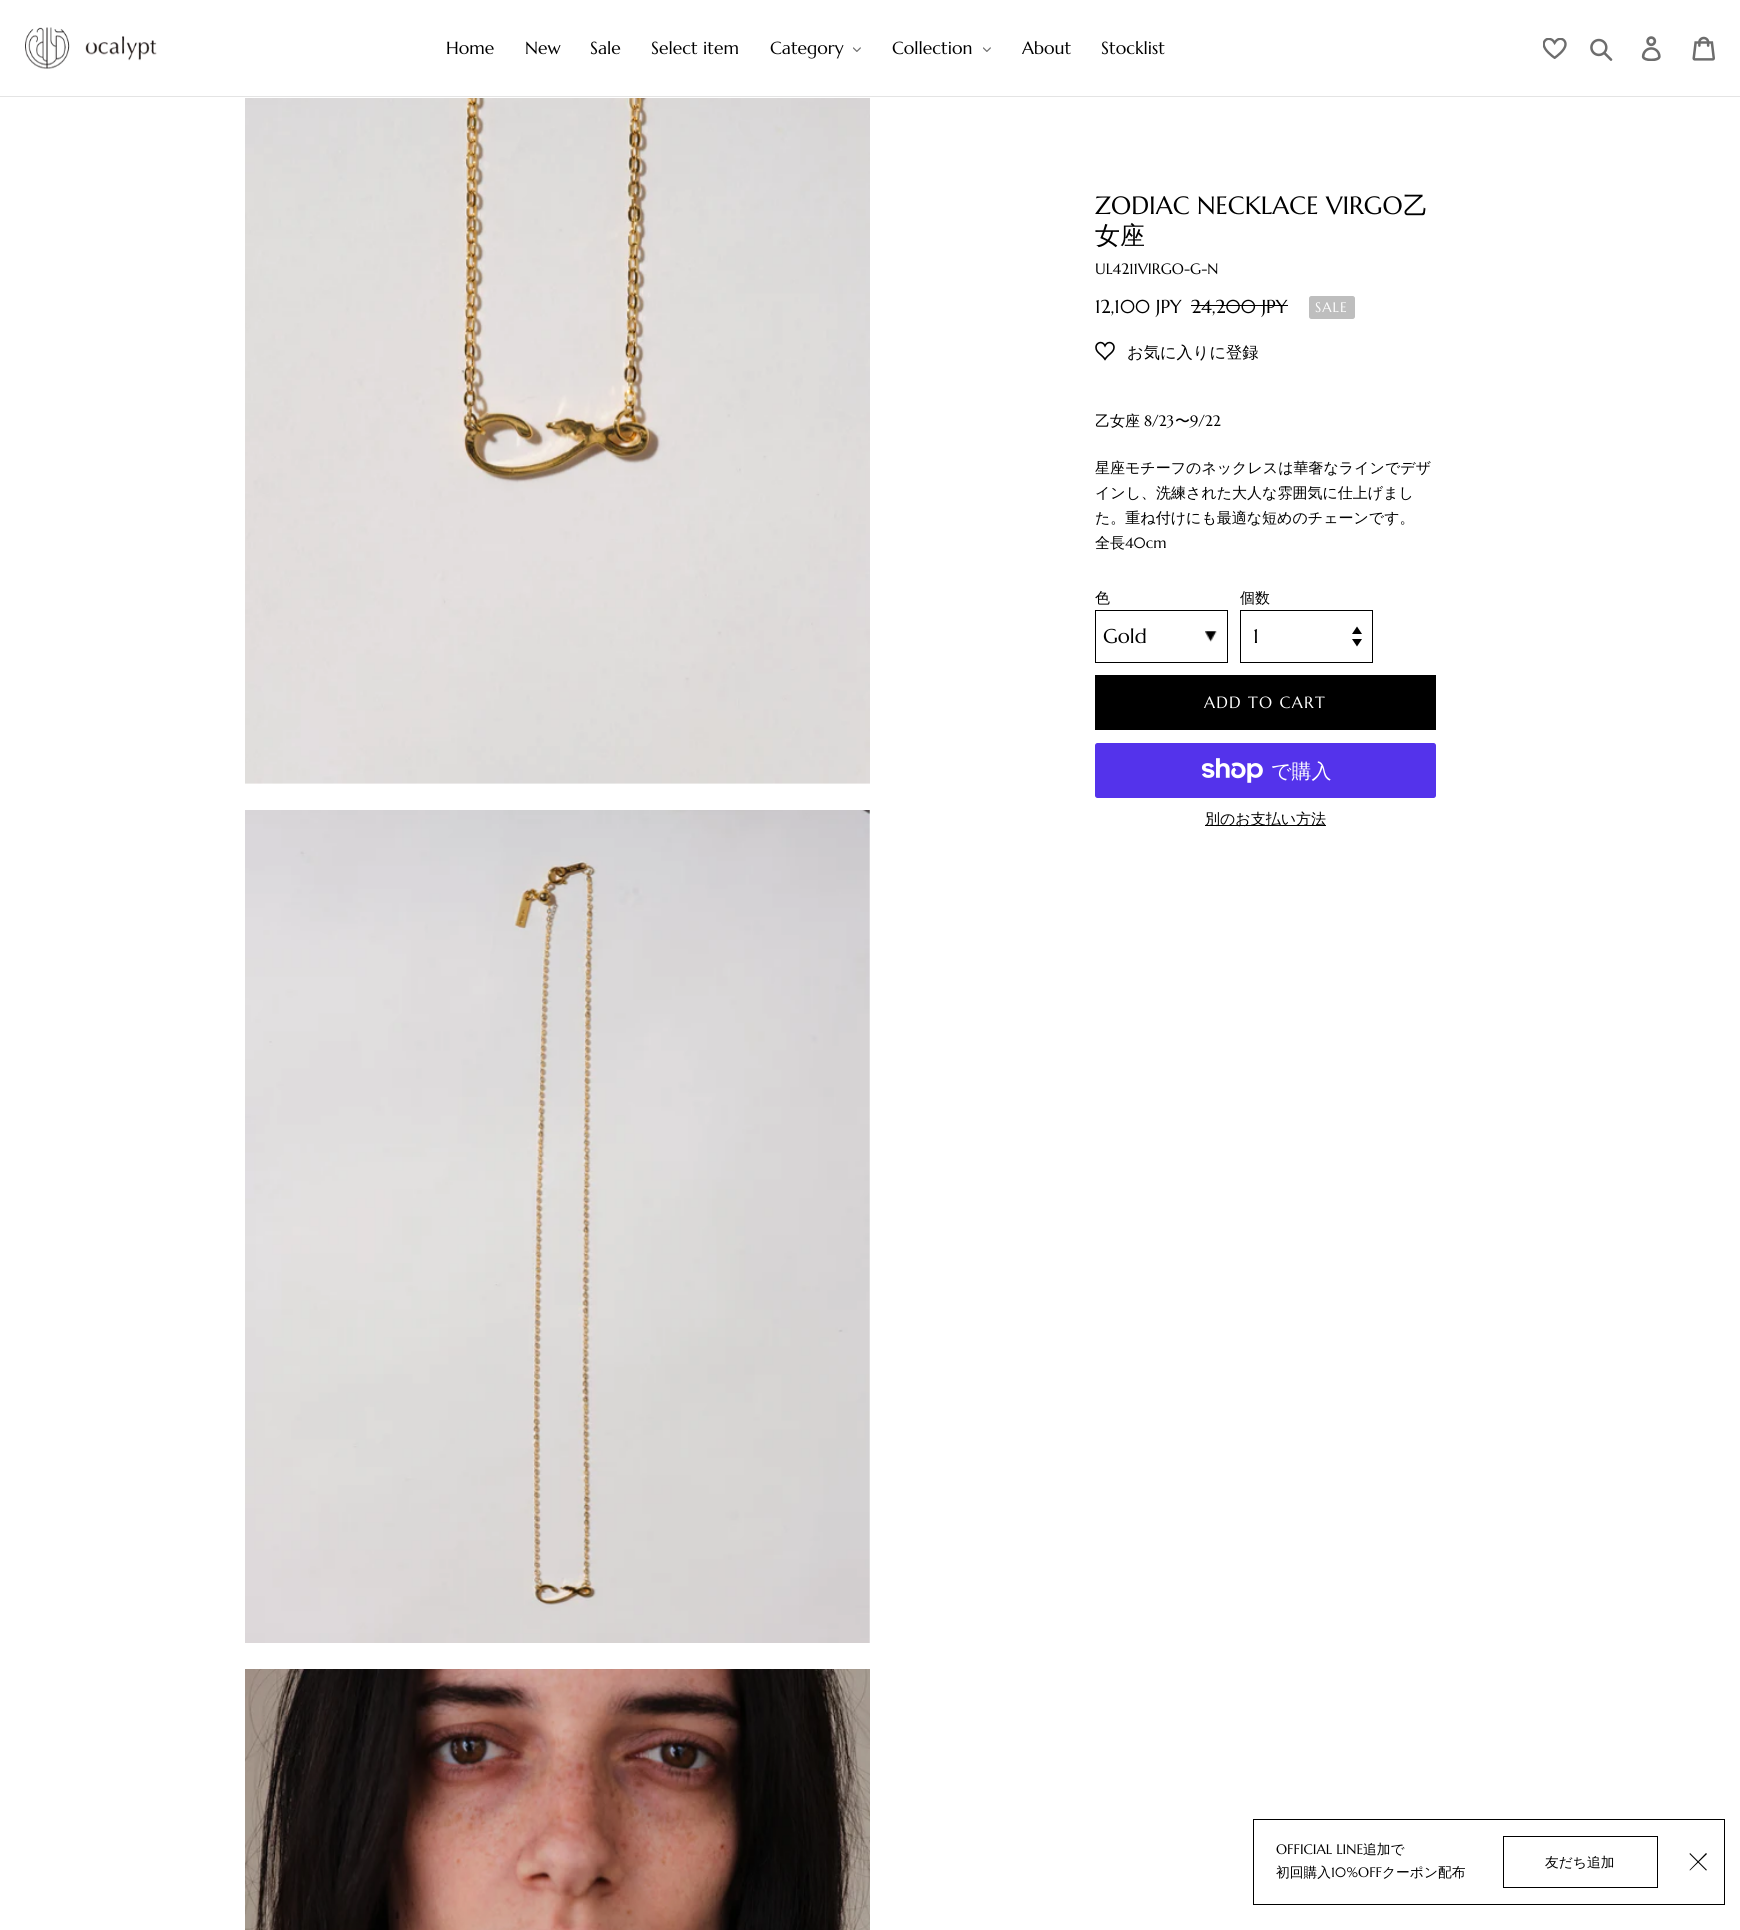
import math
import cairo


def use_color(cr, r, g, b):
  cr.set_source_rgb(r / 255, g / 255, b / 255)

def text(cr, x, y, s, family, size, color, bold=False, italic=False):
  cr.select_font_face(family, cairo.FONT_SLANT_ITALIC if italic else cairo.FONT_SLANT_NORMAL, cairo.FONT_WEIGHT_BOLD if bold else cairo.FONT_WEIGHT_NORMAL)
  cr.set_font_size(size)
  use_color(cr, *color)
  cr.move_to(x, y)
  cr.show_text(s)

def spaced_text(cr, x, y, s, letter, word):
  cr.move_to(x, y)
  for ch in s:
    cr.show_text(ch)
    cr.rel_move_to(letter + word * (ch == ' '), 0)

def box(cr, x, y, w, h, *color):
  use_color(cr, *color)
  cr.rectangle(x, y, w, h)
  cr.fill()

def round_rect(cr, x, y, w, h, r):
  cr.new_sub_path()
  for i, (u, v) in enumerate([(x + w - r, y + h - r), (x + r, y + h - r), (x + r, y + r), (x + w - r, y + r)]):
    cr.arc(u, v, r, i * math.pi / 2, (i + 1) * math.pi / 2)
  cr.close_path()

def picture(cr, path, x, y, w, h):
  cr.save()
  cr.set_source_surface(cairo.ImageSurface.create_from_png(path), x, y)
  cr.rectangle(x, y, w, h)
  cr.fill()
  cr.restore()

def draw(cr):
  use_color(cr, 255, 255, 255)
  cr.paint()
  box(cr, 0, 96, 1740, 1, 228, 228, 228)
  picture(cr, "img_01.png", 25, 27, 132, 42)
  picture(cr, "img_02.png", 853, 47, 8, 5)
  picture(cr, "img_02.png", 983, 47, 8, 5)
  picture(cr, "img_03.png", 1543, 38, 24, 21)
  picture(cr, "img_04.png", 1590, 38, 23, 23)
  picture(cr, "img_05.png", 1641, 36, 20, 25)
  picture(cr, "img_06.png", 1692, 36, 23, 25)
  picture(cr, "img_07.png", 245, 98, 625, 686)
  picture(cr, "img_08.png", 245, 810, 625, 833)
  picture(cr, "img_09.png", 245, 1669, 625, 261)
  box(cr, 1191, 305, 97, 1, 0, 0, 0)
  use_color(cr, 190, 190, 190)
  round_rect(cr, 1309.5, 296.5, 45, 22, 2)
  cr.fill_preserve()
  cr.set_line_width(1)
  cr.stroke()
  picture(cr, "img_10.png", 1095, 341, 20, 20)
  picture(cr, "img_11.png", 1205, 631, 12, 11)
  cr.rectangle(1095.5, 610.5, 132, 52)
  use_color(cr, 0, 0, 0)
  cr.stroke()
  cr.rectangle(1240.5, 610.5, 132, 52)
  cr.stroke()
  cr.new_path()
  cr.move_to(1362, 634)
  cr.line_to(1352, 634)
  cr.line_to(1357, 626.5)
  cr.close_path()
  cr.move_to(1352, 639)
  cr.line_to(1362, 639)
  cr.line_to(1357, 646.5)
  cr.close_path()
  cr.fill()
  box(cr, 1095, 675, 341, 55, 0, 0, 0)
  use_color(cr, 84, 51, 235)
  round_rect(cr, 1095, 743, 341, 55, 2.5)
  cr.fill()
  picture(cr, "img_12.png", 1201, 758, 62, 25)
  box(cr, 1205, 825, 121, 1, 0, 0, 0)
  cr.rectangle(1253.5, 1819.5, 471, 85)
  cr.stroke()
  cr.rectangle(1503.5, 1836.5, 154, 51)
  cr.stroke()
  cr.new_path()
  cr.move_to(1690, 1853)
  cr.line_to(1707, 1870)
  cr.line_to(1706, 1870.5)
  cr.line_to(1689.5, 1854)
  cr.close_path()
  cr.fill()
  cr.new_path()
  cr.move_to(1689.5, 1870)
  cr.line_to(1706, 1853)
  cr.line_to(1707, 1854)
  cr.line_to(1690, 1870.5)
  cr.close_path()
  cr.fill()
  text(cr, 446, 54, "Home", "Marcellus", 17.5, (0, 0, 0))
  text(cr, 525, 54, "New", "Marcellus", 17.5, (0, 0, 0))
  text(cr, 590, 54, "Sale", "Marcellus", 17.5, (0, 0, 0))
  text(cr, 651, 54, "Select item", "Marcellus", 17.5, (0, 0, 0))
  text(cr, 770, 54, "Category", "Marcellus", 17.5, (0, 0, 0))
  text(cr, 892, 54, "Collection", "Marcellus", 17.5, (0, 0, 0))
  text(cr, 1022, 54, "About", "Marcellus", 17.5, (0, 0, 0))
  text(cr, 1101, 54, "Stocklist", "Marcellus", 17.5, (0, 0, 0))
  text(cr, 1095, 214, "ZODIAC NECKLACE VIRGO", "Marcellus", 25, (0, 0, 0))
  text(cr, 1403, 214, "乙", "WenQuanYi Zen Hei Medium", 25, (0, 0, 0))
  text(cr, 1095, 244, "女座", "WenQuanYi Zen Hei Medium", 25, (0, 0, 0))
  text(cr, 1095, 274, "UL4211VIRGO-G-N", "Marcellus", 15, (0, 0, 0))
  text(cr, 1095, 313, "12,100 JPY", "Marcellus", 18.75, (0, 0, 0))
  text(cr, 1191, 313, "24,200 JPY", "Marcellus", 18.75, (0, 0, 0))
  cr.set_font_size(13.75)
  use_color(cr, 255, 255, 255)
  spaced_text(cr, 1315, 312, "SALE", 1, 0)
  text(cr, 1127, 358, "お気に入りに登録", "WenQuanYi Zen Hei Medium", 16.25, (0, 0, 0))
  text(cr, 1095, 426, "乙女座", "WenQuanYi Zen Hei Medium", 15, (0, 0, 0))
  text(cr, 1144, 426, "8/23", "Marcellus", 15, (0, 0, 0))
  text(cr, 1175, 426, "〜", "WenQuanYi Zen Hei Medium", 15, (0, 0, 0))
  text(cr, 1190, 426, "9/22", "Marcellus", 15, (0, 0, 0))
  text(cr, 1095, 473, "星座モチーフのネックレスは華奢なラインでデザ", "WenQuanYi Zen Hei Medium", 15, (0, 0, 0))
  text(cr, 1095, 498, "インし、洗練された大人な雰囲気に仕上げまし", "WenQuanYi Zen Hei Medium", 15, (0, 0, 0))
  text(cr, 1095, 523, "た。重ね付けにも最適な短めのチェーンです。", "WenQuanYi Zen Hei Medium", 15, (0, 0, 0))
  text(cr, 1095, 548, "全長", "WenQuanYi Zen Hei Medium", 15, (0, 0, 0))
  text(cr, 1125, 548, "40cm", "Marcellus", 15, (0, 0, 0))
  text(cr, 1095, 603, "色", "WenQuanYi Zen Hei Medium", 15, (0, 0, 0))
  text(cr, 1103, 643, "Gold", "Marcellus", 20, (0, 0, 0))
  text(cr, 1240, 603, "個数", "WenQuanYi Zen Hei Medium", 15, (0, 0, 0))
  text(cr, 1253, 643, "1", "Marcellus", 20, (0, 0, 0))
  cr.set_font_size(16.25)
  use_color(cr, 255, 255, 255)
  spaced_text(cr, 1204, 708, "ADD TO CART", 1.25, 0)
  text(cr, 1271, 778, "で購入", "WenQuanYi Zen Hei Medium", 20, (255, 255, 255))
  text(cr, 1205, 824, "別のお支払い方法", "WenQuanYi Zen Hei Medium", 15, (0, 0, 0))
  text(cr, 1276, 1854, "OFFICIAL LINE", "Marcellus", 13.75, (0, 0, 0))
  text(cr, 1363, 1854, "追加で", "WenQuanYi Zen Hei Medium", 13.75, (0, 0, 0))
  text(cr, 1276, 1877, "初回購入", "WenQuanYi Zen Hei Medium", 13.75, (0, 0, 0))
  text(cr, 1331, 1877, "10%OFF", "Marcellus", 13.75, (0, 0, 0))
  text(cr, 1382, 1877, "クーポン配布", "WenQuanYi Zen Hei Medium", 13.75, (0, 0, 0))
  text(cr, 1545, 1867, "友だち追加", "WenQuanYi Zen Hei Medium", 13.75, (0, 0, 0))


surface = cairo.ImageSurface(cairo.FORMAT_RGB24, 1740, 1930)
cr = cairo.Context(surface)
options = cairo.FontOptions()
options.set_hint_metrics(cairo.HINT_METRICS_OFF)
options.set_hint_style(cairo.HINT_STYLE_NONE)
cr.set_font_options(options)
cr.set_miter_limit(4)
draw(cr)
surface.write_to_png("out.png")
